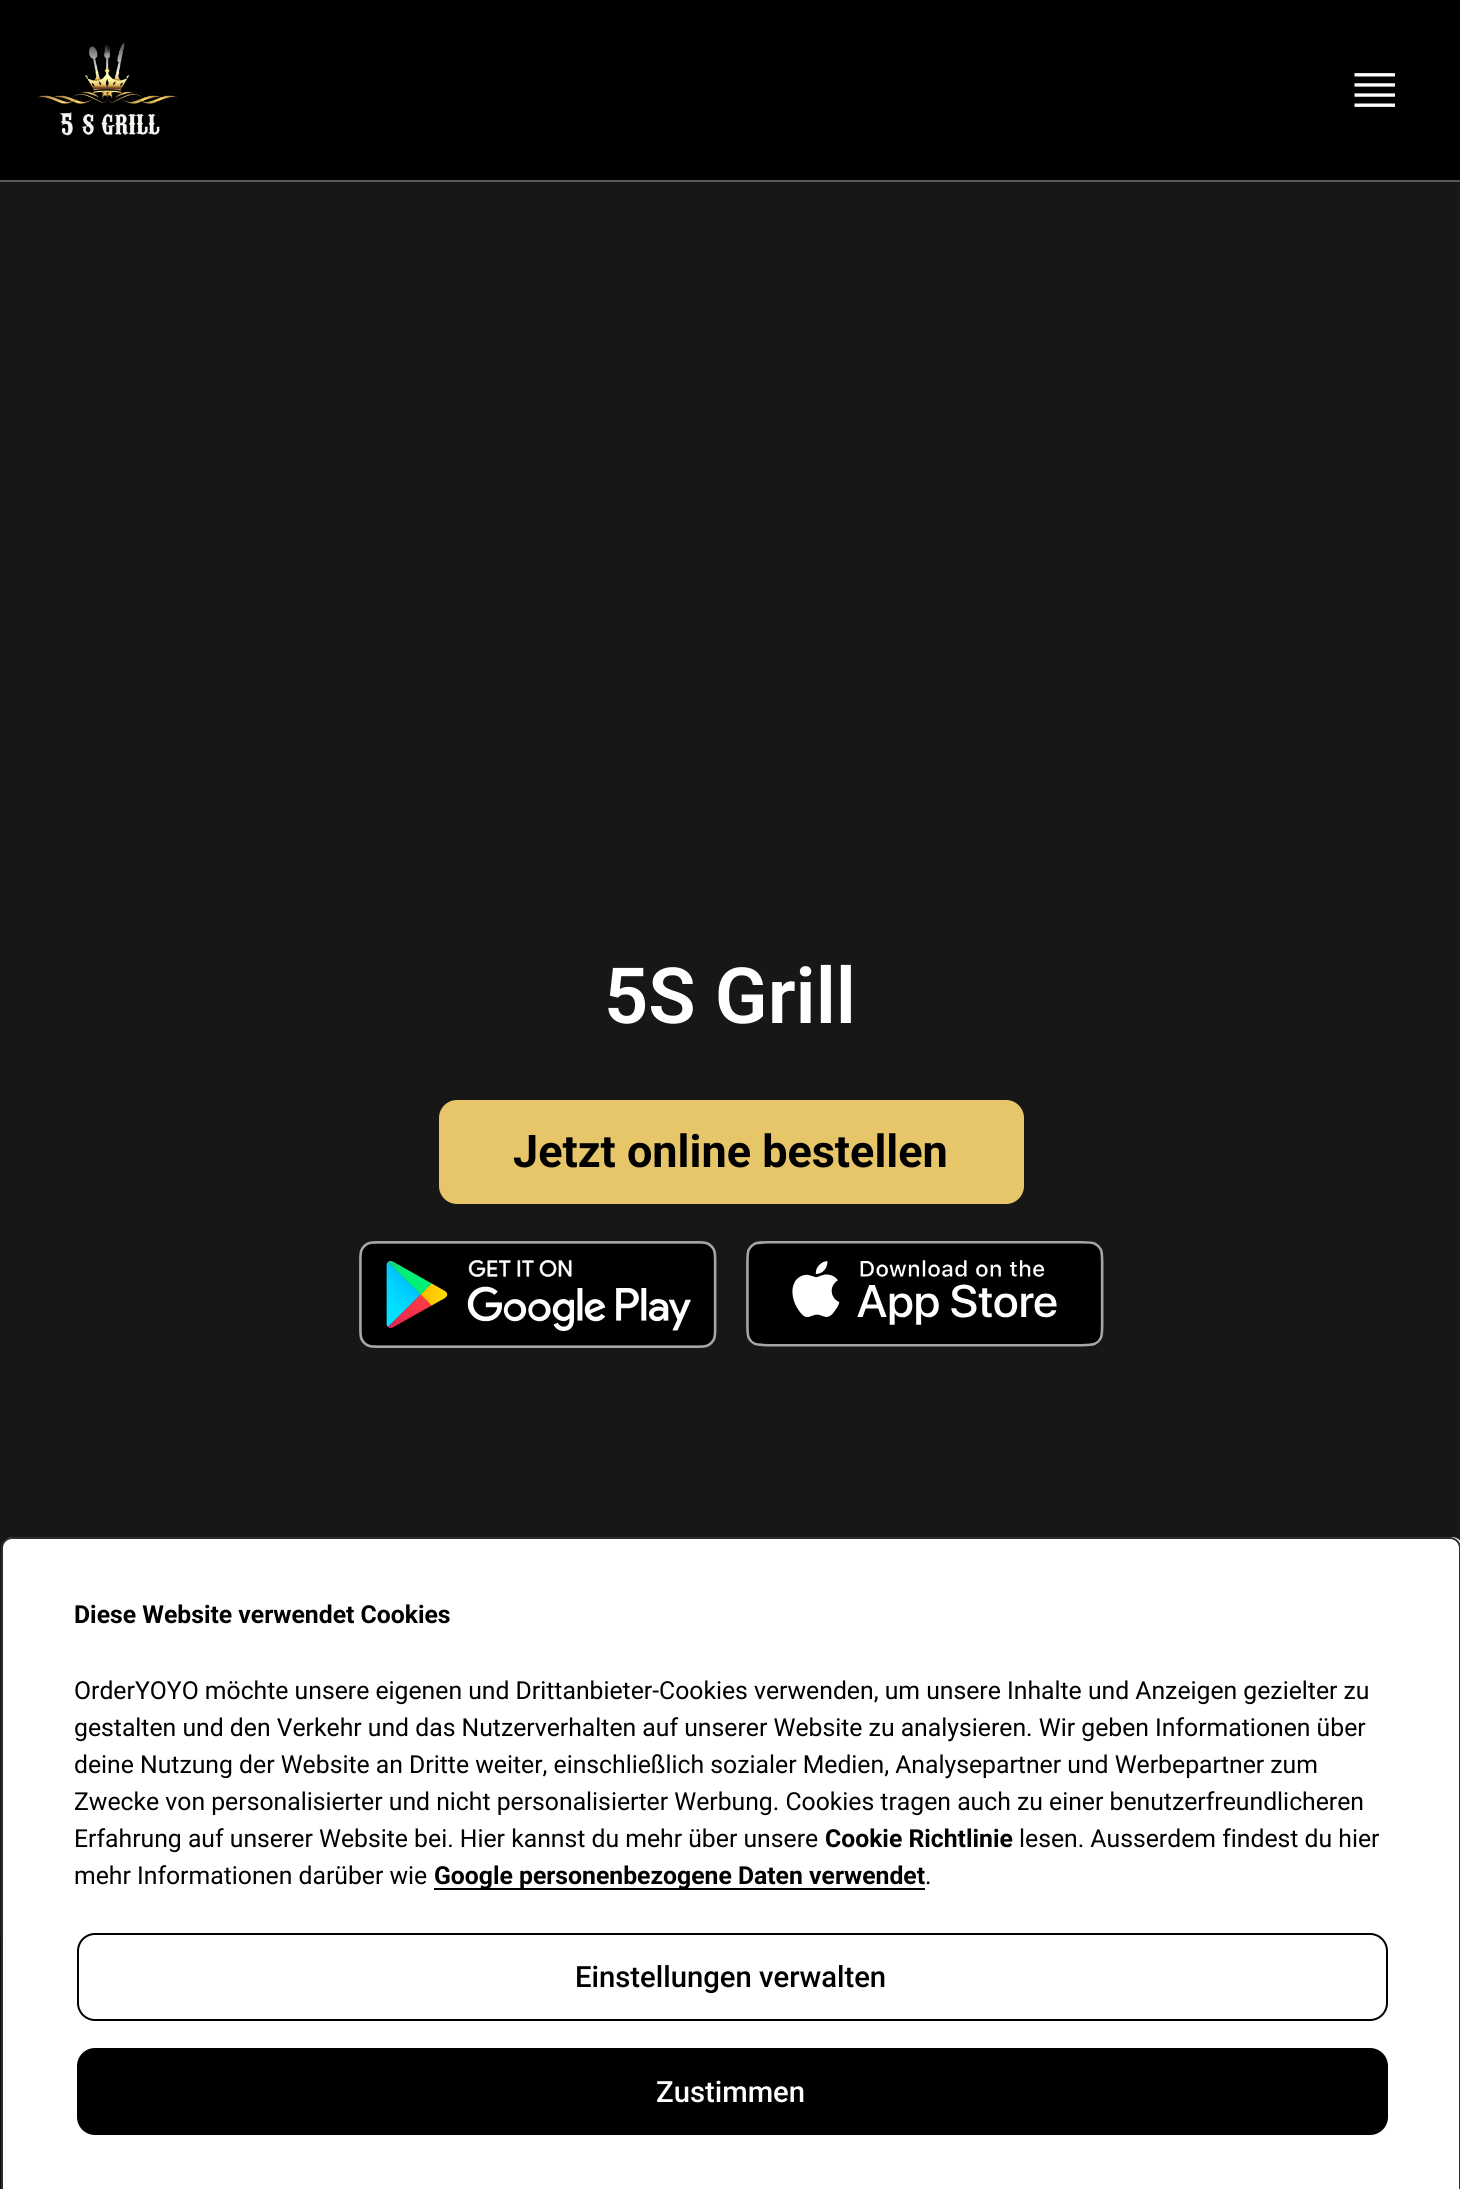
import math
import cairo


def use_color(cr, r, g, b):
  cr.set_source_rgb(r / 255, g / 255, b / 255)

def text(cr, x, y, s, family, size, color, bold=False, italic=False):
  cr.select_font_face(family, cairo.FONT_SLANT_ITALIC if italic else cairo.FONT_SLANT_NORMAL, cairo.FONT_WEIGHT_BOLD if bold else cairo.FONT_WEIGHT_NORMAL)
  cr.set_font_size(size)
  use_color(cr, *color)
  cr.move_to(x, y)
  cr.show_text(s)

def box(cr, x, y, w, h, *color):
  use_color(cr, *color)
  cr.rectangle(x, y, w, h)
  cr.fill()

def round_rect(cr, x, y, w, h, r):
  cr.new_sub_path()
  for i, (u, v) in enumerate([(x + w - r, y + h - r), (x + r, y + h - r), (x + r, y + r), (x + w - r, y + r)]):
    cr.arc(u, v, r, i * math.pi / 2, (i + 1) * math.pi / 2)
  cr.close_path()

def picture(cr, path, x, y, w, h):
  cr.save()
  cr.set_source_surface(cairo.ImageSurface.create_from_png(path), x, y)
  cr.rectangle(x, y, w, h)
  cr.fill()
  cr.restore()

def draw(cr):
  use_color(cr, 23, 23, 23)
  cr.paint()
  box(cr, 0, 0, 1460, 180, 0, 0, 0)
  box(cr, 0, 180, 1460, 2, 89, 89, 89)
  picture(cr, "img_01.png", 36, 43, 142, 93)
  picture(cr, "img_02.png", 1354, 73, 41, 34)
  use_color(cr, 230, 198, 105)
  round_rect(cr, 440, 1101, 583, 102, 17)
  cr.fill_preserve()
  cr.stroke()
  picture(cr, "img_03.png", 359, 1241, 358, 107)
  picture(cr, "img_04.png", 746, 1241, 358, 106)
  box(cr, 0, 1937, 1, 252, 14, 14, 14)
  use_color(cr, 255, 255, 255)
  cr.new_path()
  cr.move_to(13, 1537)
  cr.line_to(1452, 1537)
  cr.curve_to(1458, 1537, 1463, 1542, 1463, 1548)
  cr.line_to(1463, 2189)
  cr.line_to(2, 2189)
  cr.line_to(2, 1548)
  cr.curve_to(2, 1542, 7, 1537, 13, 1537)
  cr.close_path()
  cr.fill()
  use_color(cr, 44, 44, 44)
  cr.set_fill_rule(cairo.FILL_RULE_EVEN_ODD)
  cr.new_path()
  cr.move_to(12, 1537)
  cr.line_to(1450, 1537)
  cr.curve_to(1456, 1537, 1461, 1542, 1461, 1548)
  cr.line_to(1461, 2189)
  cr.line_to(1, 2189)
  cr.line_to(1, 1548)
  cr.curve_to(1, 1542, 6, 1537, 12, 1537)
  cr.close_path()
  cr.move_to(12, 1539)
  cr.line_to(1450, 1539)
  cr.curve_to(1455, 1539, 1459, 1543, 1459, 1548)
  cr.line_to(1459, 2189)
  cr.line_to(3, 2189)
  cr.line_to(3, 1548)
  cr.curve_to(3, 1543, 7, 1539, 12, 1539)
  cr.close_path()
  cr.fill()
  box(cr, 434, 1888, 491, 2, 0, 0, 0)
  round_rect(cr, 78, 1934, 1309, 86, 17)
  cr.stroke()
  round_rect(cr, 78, 2049, 1309, 85, 17)
  cr.fill_preserve()
  cr.stroke()
  text(cr, 604, 1023, "5S Grill", "Roboto SemiBold", 77.5, (255, 255, 255))
  text(cr, 513, 1167, "Jetzt online bestellen", "Roboto", 45, (0, 0, 0), bold=True)
  text(cr, 74, 1623, "Diese Website verwendet Cookies", "Roboto", 24.75, (0, 0, 0), bold=True)
  text(cr, 74, 1699, "OrderYOYO möchte unsere eigenen und Drittanbieter-Cookies verwenden, um unsere Inhalte und Anzeigen gezielter zu", "Roboto", 24.75, (0, 0, 0))
  text(cr, 74, 1736, "gestalten und den Verkehr und das Nutzerverhalten auf unserer Website zu analysieren. Wir geben Informationen über", "Roboto", 24.75, (0, 0, 0))
  text(cr, 74, 1773, "deine Nutzung der Website an Dritte weiter, einschließlich sozialer Medien, Analysepartner und Werbepartner zum", "Roboto", 24.75, (0, 0, 0))
  text(cr, 74, 1810, "Zwecke von personalisierter und nicht personalisierter Werbung. Cookies tragen auch zu einer benutzerfreundlicheren", "Roboto", 24.75, (0, 0, 0))
  text(cr, 74, 1847, "Erfahrung auf unserer Website bei. Hier kannst du mehr über unsere", "Roboto", 24.75, (0, 0, 0))
  text(cr, 825, 1847, "Cookie Richtlinie", "Roboto", 24.75, (0, 0, 0), bold=True)
  text(cr, 1019, 1847, "lesen. Ausserdem findest du hier", "Roboto", 24.75, (0, 0, 0))
  text(cr, 74, 1884, "mehr Informationen darüber wie", "Roboto", 24.75, (0, 0, 0))
  text(cr, 434, 1884, "Google personenbezogene Daten verwendet", "Roboto", 24.75, (0, 0, 0), bold=True)
  text(cr, 925, 1884, ".", "Roboto", 24.75, (0, 0, 0))
  text(cr, 575, 1987, "Einstellungen verwalten", "Roboto Medium", 29.25, (0, 0, 0))
  text(cr, 656, 2102, "Zustimmen", "Roboto Medium", 29.25, (255, 255, 255))


surface = cairo.ImageSurface(cairo.FORMAT_RGB24, 1460, 2189)
cr = cairo.Context(surface)
options = cairo.FontOptions()
options.set_hint_metrics(cairo.HINT_METRICS_OFF)
options.set_hint_style(cairo.HINT_STYLE_NONE)
cr.set_font_options(options)
cr.set_miter_limit(4)
draw(cr)
surface.write_to_png("out.png")
